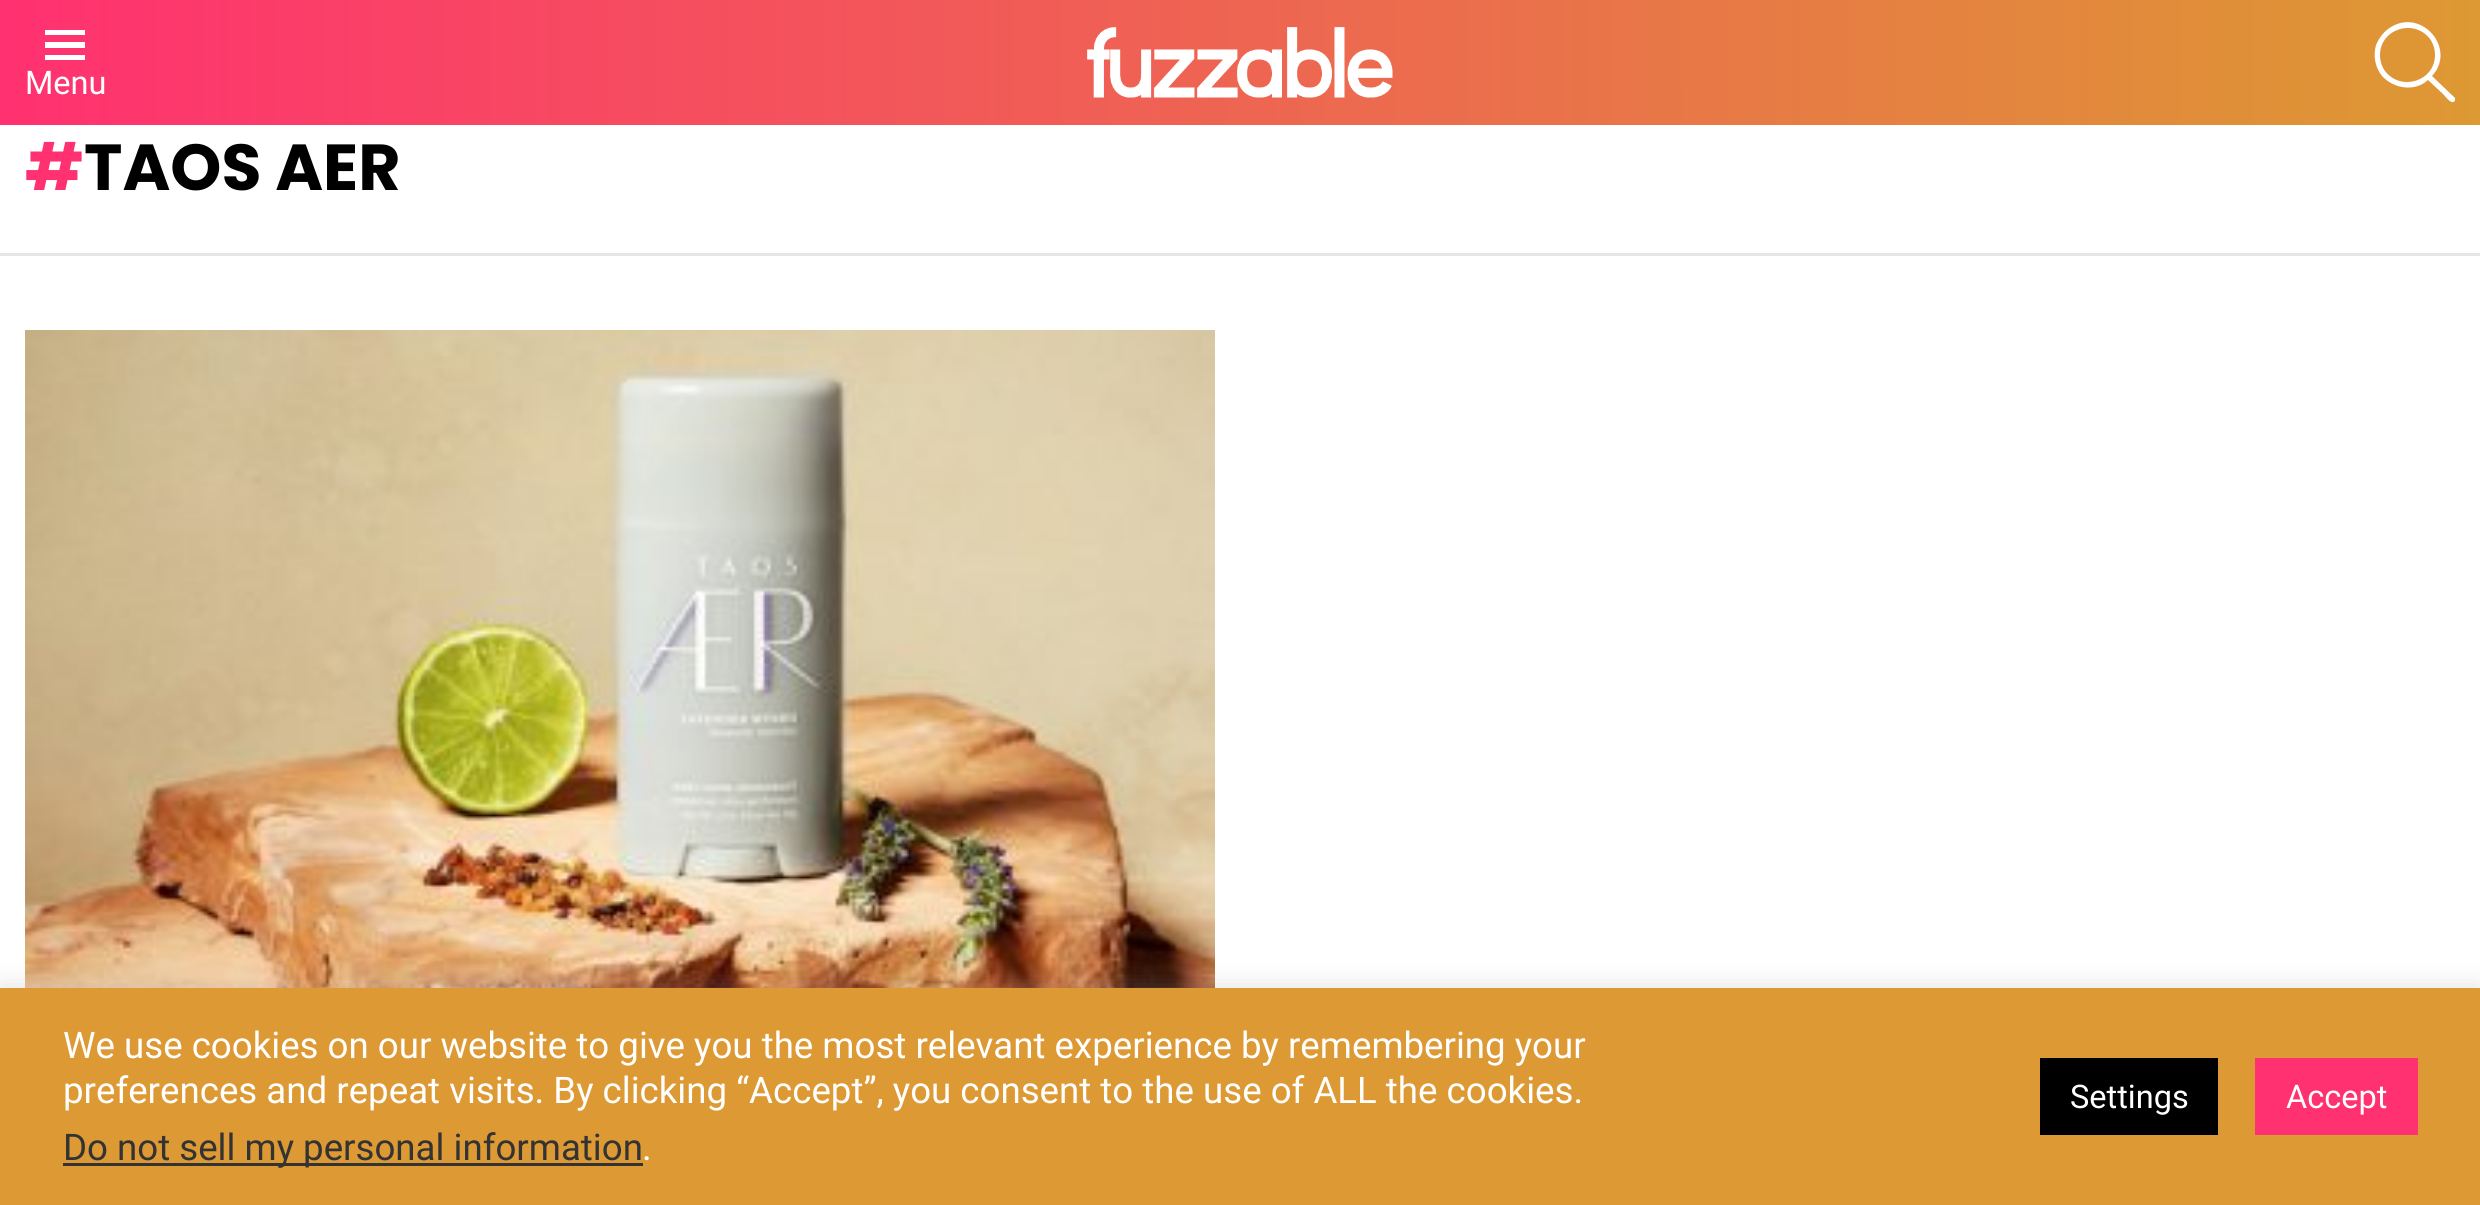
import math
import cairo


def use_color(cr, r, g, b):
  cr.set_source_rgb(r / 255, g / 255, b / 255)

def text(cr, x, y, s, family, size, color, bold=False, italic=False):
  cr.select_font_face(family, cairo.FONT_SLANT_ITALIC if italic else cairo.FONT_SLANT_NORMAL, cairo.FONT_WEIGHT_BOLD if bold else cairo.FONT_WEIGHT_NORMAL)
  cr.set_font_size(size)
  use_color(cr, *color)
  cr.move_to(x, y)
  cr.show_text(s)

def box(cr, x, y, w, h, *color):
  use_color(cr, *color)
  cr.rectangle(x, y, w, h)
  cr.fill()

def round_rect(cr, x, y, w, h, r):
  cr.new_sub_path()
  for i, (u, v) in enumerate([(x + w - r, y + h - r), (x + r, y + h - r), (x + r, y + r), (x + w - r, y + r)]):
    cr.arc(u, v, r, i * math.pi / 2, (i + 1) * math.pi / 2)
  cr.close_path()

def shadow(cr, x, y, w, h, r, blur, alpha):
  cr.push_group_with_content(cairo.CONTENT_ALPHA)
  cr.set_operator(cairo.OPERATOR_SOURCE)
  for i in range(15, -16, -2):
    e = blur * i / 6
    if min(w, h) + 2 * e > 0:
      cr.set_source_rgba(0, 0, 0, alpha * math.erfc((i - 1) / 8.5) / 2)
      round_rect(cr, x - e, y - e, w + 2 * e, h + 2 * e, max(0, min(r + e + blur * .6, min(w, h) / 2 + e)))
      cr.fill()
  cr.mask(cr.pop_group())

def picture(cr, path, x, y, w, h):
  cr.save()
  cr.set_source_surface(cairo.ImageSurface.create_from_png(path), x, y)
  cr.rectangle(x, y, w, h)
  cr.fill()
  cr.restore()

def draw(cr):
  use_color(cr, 255, 255, 255)
  cr.paint()
  gradient = cairo.LinearGradient(0, 63, 2480, 62)
  gradient.add_color_stop_rgba(0, 1, 0.192, 0.439, 1)
  gradient.add_color_stop_rgba(1, 0.867, 0.6, 0.2, 1)
  cr.set_source(gradient)
  cr.rectangle(0, 0, 2480, 125)
  cr.fill()
  use_color(cr, 255, 255, 255)
  cr.new_path()
  cr.move_to(45, 30)
  cr.line_to(85, 30)
  cr.line_to(85, 35)
  cr.line_to(45, 35)
  cr.close_path()
  cr.move_to(45, 42)
  cr.line_to(85, 42)
  cr.line_to(85, 48)
  cr.line_to(45, 48)
  cr.close_path()
  cr.move_to(45, 55)
  cr.line_to(85, 55)
  cr.line_to(85, 60)
  cr.line_to(45, 60)
  cr.close_path()
  cr.fill()
  picture(cr, "img_01.png", 1087, 27, 306, 71)
  cr.new_path()
  cr.move_to(2455, 98)
  cr.line_to(2432, 76)
  cr.curve_to(2457, 49, 2422, 8, 2391, 27)
  cr.curve_to(2384, 31, 2379, 38, 2376, 45)
  cr.curve_to(2373, 56, 2375, 67, 2382, 76)
  cr.curve_to(2394, 89, 2415, 92, 2428, 80)
  cr.line_to(2443, 94)
  cr.curve_to(2445, 96, 2450, 103, 2453, 102)
  cr.curve_to(2455, 102, 2455, 100, 2455, 98)
  cr.close_path()
  cr.move_to(2380, 55)
  cr.curve_to(2380, 29, 2414, 18, 2430, 39)
  cr.curve_to(2433, 43, 2435, 49, 2435, 55)
  cr.curve_to(2435, 81, 2401, 92, 2385, 71)
  cr.curve_to(2382, 67, 2380, 61, 2380, 55)
  cr.close_path()
  cr.fill()
  box(cr, 0, 253, 2480, 3, 230, 230, 230)
  picture(cr, "img_02.png", 25, 330, 1190, 658)
  use_color(cr, 172, 171, 171)
  shadow(cr, 0, 985, 2480, 218, 0, 12.5, 0.3)
  box(cr, 0, 988, 2480, 217, 221, 153, 51)
  box(cr, 63, 1163, 580, 3, 51, 51, 51)
  box(cr, 2040, 1058, 178, 77, 0, 0, 0)
  box(cr, 2255, 1058, 163, 77, 255, 49, 112)
  text(cr, 25, 94, "Menu", "Roboto", 32.5, (255, 255, 255))
  text(cr, 25, 190, "#", "Poppins", 65, (255, 49, 112), bold=True)
  text(cr, 84, 190, "TAOS AER", "Poppins", 65, (0, 0, 0), bold=True)
  text(cr, 63, 1058, "We use cookies on our website to give you the most relevant experience by remembering your", "Roboto", 36.65, (255, 255, 255))
  text(cr, 63, 1103, "preferences and repeat visits. By clicking “Accept”, you consent to the use of ALL the cookies.", "Roboto", 36.65, (255, 255, 255))
  text(cr, 63, 1160, "Do not sell my personal information", "Roboto", 36.65, (51, 51, 51))
  text(cr, 642, 1160, ".", "Roboto", 36.65, (255, 255, 255))
  text(cr, 2070, 1108, "Settings", "Roboto", 32.5, (255, 255, 255))
  text(cr, 2286, 1108, "Accept", "Roboto", 32.5, (255, 255, 255))


surface = cairo.ImageSurface(cairo.FORMAT_RGB24, 2480, 1205)
cr = cairo.Context(surface)
options = cairo.FontOptions()
options.set_hint_metrics(cairo.HINT_METRICS_OFF)
options.set_hint_style(cairo.HINT_STYLE_NONE)
cr.set_font_options(options)
cr.set_miter_limit(4)
draw(cr)
surface.write_to_png("out.png")
